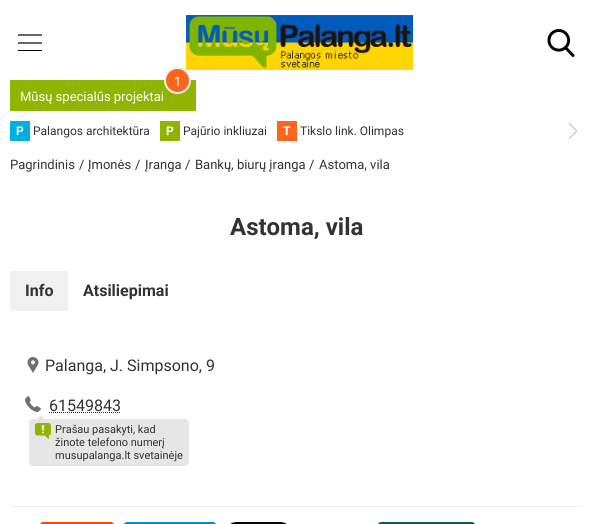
import math
import cairo


def use_color(cr, r, g, b):
  cr.set_source_rgb(r / 255, g / 255, b / 255)

def text(cr, x, y, s, family, size, color, bold=False, italic=False):
  cr.select_font_face(family, cairo.FONT_SLANT_ITALIC if italic else cairo.FONT_SLANT_NORMAL, cairo.FONT_WEIGHT_BOLD if bold else cairo.FONT_WEIGHT_NORMAL)
  cr.set_font_size(size)
  use_color(cr, *color)
  cr.move_to(x, y)
  cr.show_text(s)

def box(cr, x, y, w, h, *color):
  use_color(cr, *color)
  cr.rectangle(x, y, w, h)
  cr.fill()

def round_rect(cr, x, y, w, h, r):
  cr.new_sub_path()
  for i, (u, v) in enumerate([(x + w - r, y + h - r), (x + r, y + h - r), (x + r, y + r), (x + w - r, y + r)]):
    cr.arc(u, v, r, i * math.pi / 2, (i + 1) * math.pi / 2)
  cr.close_path()

def picture(cr, path, x, y, w, h):
  cr.save()
  cr.set_source_surface(cairo.ImageSurface.create_from_png(path), x, y)
  cr.rectangle(x, y, w, h)
  cr.fill()
  cr.restore()

def draw(cr):
  use_color(cr, 255, 255, 255)
  cr.paint()
  cr.new_path()
  cr.move_to(18, 43)
  cr.line_to(42, 43)
  cr.move_to(18, 35)
  cr.line_to(42, 35)
  use_color(cr, 0, 0, 0)
  cr.set_line_width(1.2)
  cr.stroke()
  box(cr, 18, 50, 24, 1, 0, 0, 0)
  picture(cr, "img_01.png", 186, 15, 227, 55)
  picture(cr, "img_02.png", 547, 29, 28, 28)
  box(cr, 10, 80, 186, 31, 144, 180, 0)
  use_color(cr, 251, 102, 28)
  cr.arc(177.5, 80.5, 12.5, 0, 2 * math.pi)
  cr.fill_preserve()
  use_color(cr, 240, 240, 240)
  cr.set_line_width(2)
  cr.stroke()
  box(cr, 10, 121, 20, 20, 0, 175, 225)
  box(cr, 160, 121, 20, 20, 144, 180, 0)
  box(cr, 277, 121, 20, 20, 251, 102, 28)
  picture(cr, "img_03.png", 568, 123, 9, 16)
  box(cr, 10, 271, 58, 40, 240, 240, 240)
  picture(cr, "img_04.png", 27, 357, 12, 16)
  picture(cr, "img_05.png", 25, 396, 16, 16)
  cr.new_path()
  cr.move_to(49, 412.5)
  cr.line_to(121, 412.5)
  use_color(cr, 50, 50, 50)
  cr.set_line_width(1)
  cr.set_dash([1, 1])
  cr.stroke()
  use_color(cr, 230, 230, 230)
  round_rect(cr, 29, 419, 160, 47, 4)
  cr.fill()
  cr.new_path()
  cr.move_to(45, 419)
  cr.line_to(37, 419)
  cr.line_to(41, 415)
  cr.close_path()
  cr.fill()
  picture(cr, "img_06.png", 35, 423, 16, 16)
  box(cr, 10, 506, 573, 1, 240, 240, 240)
  use_color(cr, 255, 69, 0)
  round_rect(cr, 40, 522, 74, 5, 3)
  cr.fill()
  use_color(cr, 0, 136, 204)
  round_rect(cr, 124, 522, 92, 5, 3)
  cr.fill()
  picture(cr, "img_07.png", 230, 522, 57, 2)
  use_color(cr, 7, 94, 84)
  round_rect(cr, 378, 522, 97, 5, 3)
  cr.fill()
  text(cr, 174, 86, "1", "Roboto", 13, (255, 255, 255))
  text(cr, 20, 101, "Mūsų specialūs projektai", "Roboto", 13, (255, 255, 255))
  text(cr, 16, 135, "P", "Roboto", 12, (255, 255, 255), bold=True)
  text(cr, 33, 135, "Palangos architektūra", "Roboto", 12, (50, 50, 50))
  text(cr, 166, 135, "P", "Roboto", 12, (255, 255, 255), bold=True)
  text(cr, 183, 135, "Pajūrio inkliuzai", "Roboto", 12, (50, 50, 50))
  text(cr, 283, 135, "T", "Roboto", 12, (255, 255, 255), bold=True)
  text(cr, 300, 135, "Tikslo link. Olimpas", "Roboto", 12, (50, 50, 50))
  text(cr, 10, 169, "Pagrindinis", "Roboto", 13, (50, 50, 50))
  text(cr, 79, 169, "/", "Roboto", 13, (50, 50, 50))
  text(cr, 88, 169, "Įmonės", "Roboto", 13, (50, 50, 50))
  text(cr, 135, 169, "/", "Roboto", 13, (50, 50, 50))
  text(cr, 145, 169, "Įranga", "Roboto", 13, (50, 50, 50))
  text(cr, 185, 169, "/", "Roboto", 13, (50, 50, 50))
  text(cr, 195, 169, "Bankų, biurų įranga", "Roboto", 13, (50, 50, 50))
  text(cr, 309, 169, "/", "Roboto", 13, (50, 50, 50))
  text(cr, 319, 169, "Astoma, vila", "Roboto", 13, (50, 50, 50))
  text(cr, 230, 235, "Astoma, vila", "Roboto", 24, (50, 50, 50), bold=True)
  text(cr, 25, 296, "Info", "Roboto", 16, (50, 50, 50), bold=True)
  text(cr, 83, 296, "Atsiliepimai", "Roboto", 16, (50, 50, 50), bold=True)
  text(cr, 45, 371, "Palanga, J. Simpsono, 9", "Roboto", 16, (50, 50, 50))
  text(cr, 49, 411, "61549843", "Roboto", 16, (50, 50, 50))
  text(cr, 55, 433, "Prašau pasakyti, kad", "Roboto", 11, (50, 50, 50))
  text(cr, 55, 446, "žinote telefono numerį", "Roboto", 11, (50, 50, 50))
  text(cr, 55, 459, "musupalanga.lt svetainėje", "Roboto", 11, (50, 50, 50))


surface = cairo.ImageSurface(cairo.FORMAT_RGB24, 593, 524)
cr = cairo.Context(surface)
options = cairo.FontOptions()
options.set_hint_metrics(cairo.HINT_METRICS_OFF)
options.set_hint_style(cairo.HINT_STYLE_NONE)
cr.set_font_options(options)
cr.set_miter_limit(4)
draw(cr)
surface.write_to_png("out.png")
